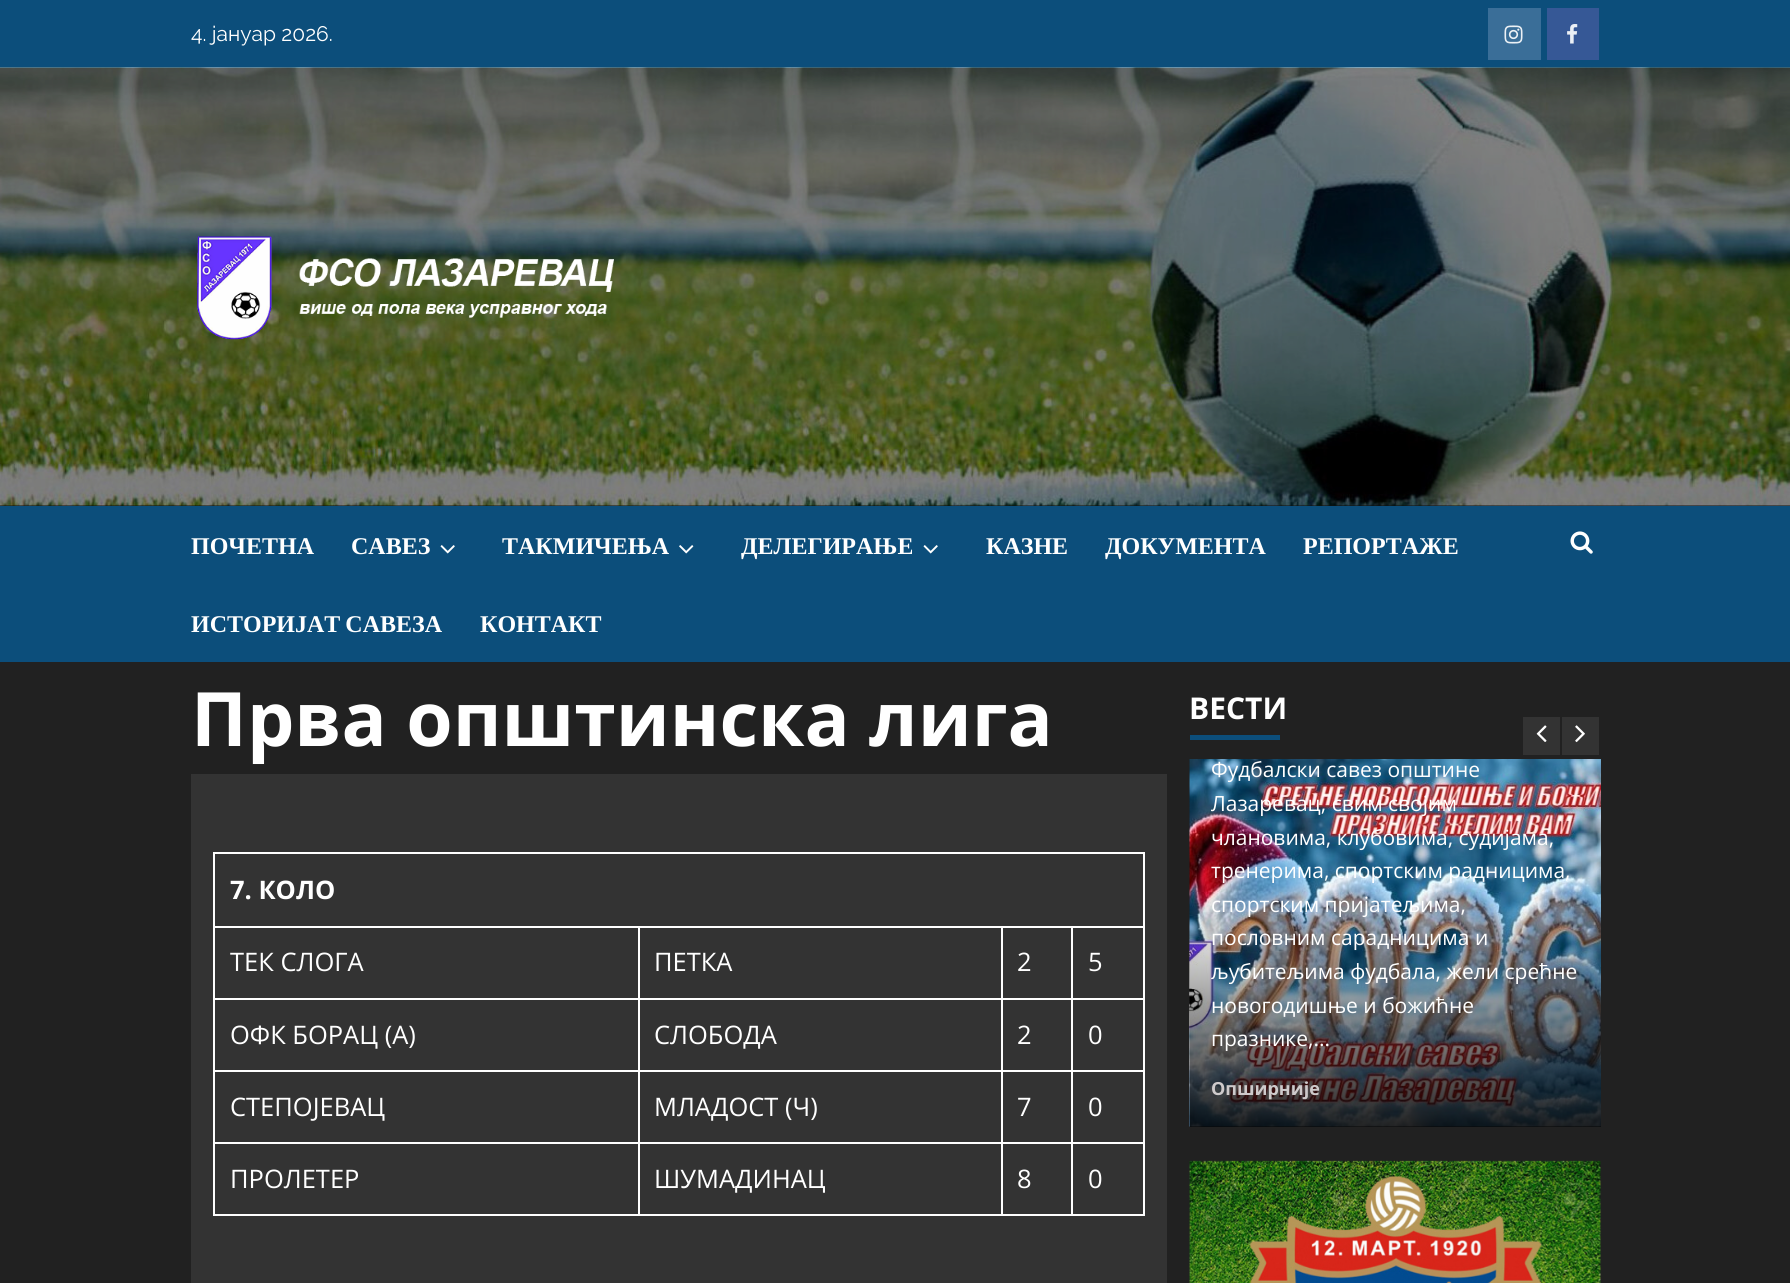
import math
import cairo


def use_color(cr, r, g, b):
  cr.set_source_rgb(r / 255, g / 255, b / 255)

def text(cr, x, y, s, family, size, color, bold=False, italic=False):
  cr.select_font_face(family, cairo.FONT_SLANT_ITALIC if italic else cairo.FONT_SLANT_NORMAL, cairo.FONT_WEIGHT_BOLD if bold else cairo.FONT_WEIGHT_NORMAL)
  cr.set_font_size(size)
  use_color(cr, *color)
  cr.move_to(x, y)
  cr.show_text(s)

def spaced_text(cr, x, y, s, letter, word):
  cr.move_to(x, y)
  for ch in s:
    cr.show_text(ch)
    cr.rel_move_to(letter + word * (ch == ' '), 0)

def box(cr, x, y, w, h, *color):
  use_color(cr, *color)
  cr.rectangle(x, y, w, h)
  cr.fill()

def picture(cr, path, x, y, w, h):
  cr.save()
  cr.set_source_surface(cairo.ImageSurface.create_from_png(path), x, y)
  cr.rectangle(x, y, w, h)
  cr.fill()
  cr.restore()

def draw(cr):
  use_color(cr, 33, 33, 33)
  cr.paint()
  box(cr, 0, 505, 1790, 1, 17, 17, 17)
  box(cr, 0, 0, 1790, 68, 12, 78, 123)
  box(cr, 1488, 8, 53, 52, 58, 110, 152)
  picture(cr, "img_01.png", 1504, 25, 19, 19)
  box(cr, 1547, 8, 52, 52, 54, 88, 150)
  picture(cr, "img_02.png", 1567, 24, 11, 20)
  picture(cr, "img_03.png", 0, 67, 1790, 439)
  picture(cr, "img_04.png", 197, 236, 417, 104)
  box(cr, 0, 506, 1790, 156, 12, 78, 123)
  picture(cr, "img_05.png", 440, 545, 15, 9)
  picture(cr, "img_06.png", 679, 545, 15, 9)
  picture(cr, "img_05.png", 923, 545, 15, 9)
  picture(cr, "img_07.png", 1570, 531, 23, 23)
  box(cr, 191, 774, 976, 509, 51, 51, 51)
  box(cr, 213, 852, 932, 2, 255, 255, 255)
  box(cr, 1071, 926, 74, 2, 255, 255, 255)
  box(cr, 1071, 998, 74, 2, 255, 255, 255)
  box(cr, 1071, 1070, 74, 2, 255, 255, 255)
  box(cr, 1071, 1142, 74, 2, 255, 255, 255)
  box(cr, 1143, 1142, 2, 73, 255, 255, 255)
  box(cr, 1143, 1070, 2, 73, 255, 255, 255)
  box(cr, 1143, 998, 2, 73, 255, 255, 255)
  box(cr, 1143, 926, 2, 73, 255, 255, 255)
  box(cr, 1143, 852, 2, 75, 255, 255, 255)
  box(cr, 1071, 1214, 74, 2, 255, 255, 255)
  box(cr, 1071, 1142, 2, 73, 255, 255, 255)
  box(cr, 1001, 1142, 72, 2, 255, 255, 255)
  box(cr, 1071, 1070, 2, 73, 255, 255, 255)
  box(cr, 1001, 1070, 72, 2, 255, 255, 255)
  box(cr, 1071, 998, 2, 73, 255, 255, 255)
  box(cr, 1001, 998, 72, 2, 255, 255, 255)
  box(cr, 1071, 926, 2, 73, 255, 255, 255)
  box(cr, 1001, 926, 72, 2, 255, 255, 255)
  box(cr, 1001, 1214, 72, 2, 255, 255, 255)
  box(cr, 1001, 1142, 2, 73, 255, 255, 255)
  box(cr, 638, 1142, 364, 2, 255, 255, 255)
  box(cr, 1001, 1070, 2, 73, 255, 255, 255)
  box(cr, 638, 1070, 364, 2, 255, 255, 255)
  box(cr, 1001, 998, 2, 73, 255, 255, 255)
  box(cr, 638, 998, 364, 2, 255, 255, 255)
  box(cr, 1001, 926, 2, 73, 255, 255, 255)
  box(cr, 638, 926, 364, 2, 255, 255, 255)
  box(cr, 638, 1214, 364, 2, 255, 255, 255)
  box(cr, 638, 1142, 2, 73, 255, 255, 255)
  box(cr, 213, 1142, 426, 2, 255, 255, 255)
  box(cr, 638, 1070, 2, 73, 255, 255, 255)
  box(cr, 213, 1070, 426, 2, 255, 255, 255)
  box(cr, 638, 998, 2, 73, 255, 255, 255)
  box(cr, 213, 998, 426, 2, 255, 255, 255)
  box(cr, 638, 926, 2, 73, 255, 255, 255)
  box(cr, 213, 926, 426, 2, 255, 255, 255)
  box(cr, 213, 1214, 426, 2, 255, 255, 255)
  box(cr, 213, 1142, 2, 73, 255, 255, 255)
  box(cr, 213, 1070, 2, 73, 255, 255, 255)
  box(cr, 213, 998, 2, 73, 255, 255, 255)
  box(cr, 213, 926, 2, 73, 255, 255, 255)
  box(cr, 213, 852, 2, 75, 255, 255, 255)
  box(cr, 1190, 735, 90, 5, 12, 78, 123)
  box(cr, 1523, 717, 37, 38, 51, 51, 51)
  picture(cr, "img_08.png", 1536, 725, 11, 17)
  box(cr, 1562, 717, 37, 38, 51, 51, 51)
  picture(cr, "img_09.png", 1575, 725, 10, 18)
  box(cr, 1190, 1126, 411, 1, 44, 44, 44)
  picture(cr, "img_10.png", 1189, 759, 412, 368)
  gradient = cairo.LinearGradient(1396, 759, 1396, 1127)
  gradient.add_color_stop_rgba(0.4, 0, 0, 0, 0)
  gradient.add_color_stop_rgba(1, 0, 0, 0, 0.85)
  cr.set_source(gradient)
  cr.rectangle(1190, 912, 411, 215)
  cr.fill()
  picture(cr, "img_11.png", 1189, 1160, 412, 123)
  text(cr, 191, 41, "4. јануар 2026.", "Raleway", 21, (255, 255, 255))
  text(cr, 191, 554, "ПОЧЕТНА", "Liberation Serif", 24, (255, 255, 255), bold=True)
  text(cr, 351, 554, "САВЕЗ", "Liberation Serif", 24, (255, 255, 255), bold=True)
  text(cr, 502, 554, "ТАКМИЧЕЊА", "Liberation Serif", 24, (255, 255, 255), bold=True)
  text(cr, 741, 554, "ДЕЛЕГИРАЊЕ", "Liberation Serif", 24, (255, 255, 255), bold=True)
  text(cr, 986, 554, "КАЗНЕ", "Liberation Serif", 24, (255, 255, 255), bold=True)
  text(cr, 1105, 554, "ДОКУМЕНТА", "Liberation Serif", 24, (255, 255, 255), bold=True)
  text(cr, 1303, 554, "РЕПОРТАЖЕ", "Liberation Serif", 24, (255, 255, 255), bold=True)
  spaced_text(cr, 191, 632, "ИСТОРИЈАТ САВЕЗА", 0, -1)
  text(cr, 480, 632, "КОНТАКТ", "Liberation Serif", 24, (255, 255, 255), bold=True)
  text(cr, 191, 746, "Прва општинска лига", "Open Sans", 75, (255, 255, 255), bold=True)
  text(cr, 230, 899, "7. КОЛО", "Open Sans", 25.5, (255, 255, 255), bold=True)
  text(cr, 230, 971, "ТЕК СЛОГА", "Open Sans", 25.5, (255, 255, 255))
  text(cr, 654, 971, "ПЕТКА", "Open Sans", 25.5, (255, 255, 255))
  text(cr, 1017, 971, "2", "Open Sans", 25.5, (255, 255, 255))
  text(cr, 1088, 971, "5", "Open Sans", 25.5, (255, 255, 255))
  text(cr, 230, 1044, "ОФК БОРАЦ (А)", "Open Sans", 25.5, (255, 255, 255))
  text(cr, 654, 1044, "СЛОБОДА", "Open Sans", 25.5, (255, 255, 255))
  text(cr, 1017, 1044, "2", "Open Sans", 25.5, (255, 255, 255))
  text(cr, 1088, 1044, "0", "Open Sans", 25.5, (255, 255, 255))
  text(cr, 230, 1116, "СТЕПОЈЕВАЦ", "Open Sans", 25.5, (255, 255, 255))
  text(cr, 654, 1116, "МЛАДОСТ (Ч)", "Open Sans", 25.5, (255, 255, 255))
  text(cr, 1017, 1116, "7", "Open Sans", 25.5, (255, 255, 255))
  text(cr, 1088, 1116, "0", "Open Sans", 25.5, (255, 255, 255))
  text(cr, 230, 1188, "ПРОЛЕТЕР", "Open Sans", 25.5, (255, 255, 255))
  text(cr, 654, 1188, "ШУМАДИНАЦ", "Open Sans", 25.5, (255, 255, 255))
  text(cr, 1017, 1188, "8", "Open Sans", 25.5, (255, 255, 255))
  text(cr, 1088, 1188, "0", "Open Sans", 25.5, (255, 255, 255))
  text(cr, 1189, 719, "ВЕСТИ", "Open Sans", 30, (255, 255, 255), bold=True)
  text(cr, 1211, 777, "Фудбалски савез општине", "Open Sans", 21, (255, 255, 255))
  text(cr, 1211, 811, "Лазаревац, свим својим", "Open Sans", 21, (255, 255, 255))
  text(cr, 1211, 845, "члановима, клубовима, судијама,", "Open Sans", 21, (255, 255, 255))
  text(cr, 1211, 878, "тренерима, спортским радницима,", "Open Sans", 21, (255, 255, 255))
  text(cr, 1211, 912, "спортским пријатељима,", "Open Sans", 21, (255, 255, 255))
  text(cr, 1211, 945, "пословним сарадницима и", "Open Sans", 21, (255, 255, 255))
  text(cr, 1211, 979, "љубитељима фудбала, жели срећне", "Open Sans", 21, (255, 255, 255))
  text(cr, 1211, 1013, "новогодишње и божићне", "Open Sans", 21, (255, 255, 255))
  text(cr, 1211, 1046, "празнике,...", "Open Sans", 21, (255, 255, 255))
  text(cr, 1211, 1095, "Опширније", "Open Sans", 18, (206, 202, 203), bold=True)


surface = cairo.ImageSurface(cairo.FORMAT_RGB24, 1790, 1283)
cr = cairo.Context(surface)
options = cairo.FontOptions()
options.set_hint_metrics(cairo.HINT_METRICS_OFF)
options.set_hint_style(cairo.HINT_STYLE_NONE)
cr.set_font_options(options)
cr.set_miter_limit(4)
draw(cr)
surface.write_to_png("out.png")
